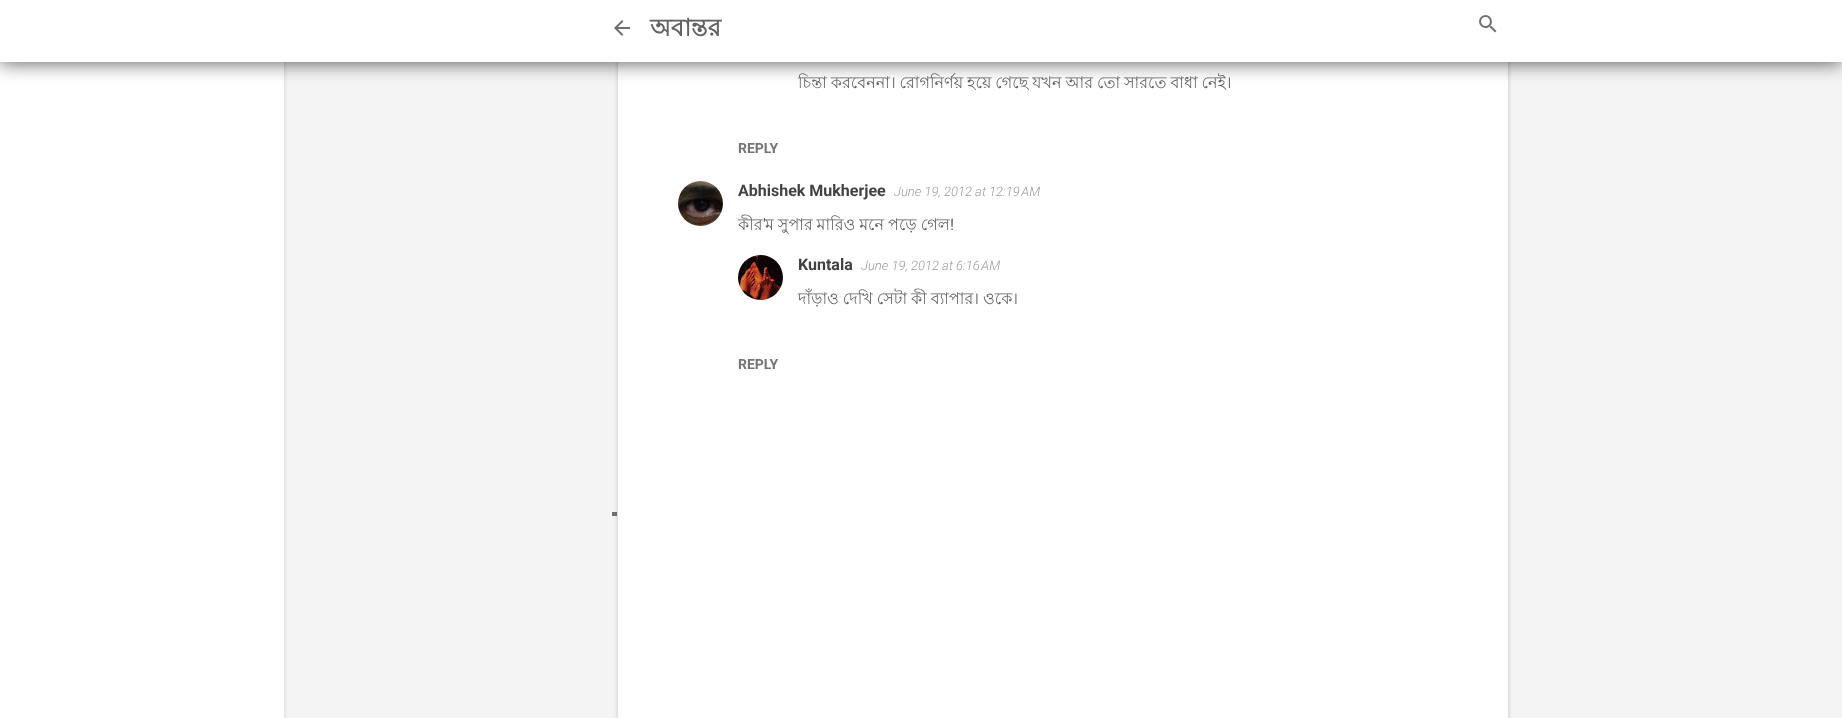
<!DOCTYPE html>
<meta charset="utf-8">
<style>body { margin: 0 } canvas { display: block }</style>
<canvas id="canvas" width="1842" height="718"></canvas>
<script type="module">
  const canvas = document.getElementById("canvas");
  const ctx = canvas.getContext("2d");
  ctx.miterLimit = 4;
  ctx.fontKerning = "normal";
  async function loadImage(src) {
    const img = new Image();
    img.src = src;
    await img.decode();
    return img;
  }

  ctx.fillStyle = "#f4f4f4";
  ctx.fillRect(0, 0, 1842, 718);
  ctx.fillStyle = "rgba(0, 0, 0, 0.1)";
  ctx.filter = "blur(1.5px)";
  ctx.beginPath();
  ctx.rect(1, -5, 284, 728);
  ctx.fill();
  ctx.filter = "none";
  ctx.fillStyle = "#ffffff";
  ctx.fillRect(0, 62, 284, 656);
  ctx.fillStyle = "rgba(60, 64, 67, 0.3)";
  ctx.filter = "blur(2px)";
  ctx.beginPath();
  ctx.rect(618, -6, 890, 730);
  ctx.fill();
  ctx.filter = "none";
  ctx.fillStyle = "#ffffff";
  ctx.fillRect(618, 62, 890, 656);
  ctx.fillStyle = "rgba(0, 0, 0, 0.7)";
  ctx.filter = "blur(10px)";
  ctx.beginPath();
  ctx.rect(0, 0, 1842, 62);
  ctx.fill();
  ctx.filter = "none";
  ctx.fillStyle = "#ffffff";
  ctx.fillRect(0, 0, 1842, 62);
  ctx.drawImage(await loadImage("img1.png"), 614, 20, 16, 16);
  ctx.font = "bold 24px Lohit Bengali";
  ctx.fillStyle = "#636363";
  ctx.fillText("অবান্তর", 650, 36);
  ctx.drawImage(await loadImage("img2.png"), 1479, 15, 18, 18);
  ctx.wordSpacing = "-0.5px";
  ctx.font = "16px Lohit Bengali";
  ctx.fillText("চিন্তা করবেননা। রোগনির্ণয় হয়ে গেছে যখন আর তো সারতে বাধা নেই।", 798, 88);
  ctx.wordSpacing = "0px";
  ctx.font = "bold 14px Roboto";
  ctx.fillStyle = "#757575";
  ctx.fillText("REPLY", 738, 153);
  ctx.drawImage(await loadImage("img3.png"), 678, 181, 45, 45);
  ctx.font = "bold 16px Roboto";
  ctx.fillStyle = "#424242";
  ctx.fillText("Abhishek Mukherjee", 738, 196);
  ctx.font = "italic 300 13px Roboto";
  ctx.fillStyle = "#999999";
  ctx.fillText("June 19, 2012 at 12:19 AM", 894, 196);
  ctx.font = "16px Lohit Bengali";
  ctx.fillStyle = "#636363";
  ctx.fillText("কীর", 738, 230);
  ctx.font = "16px Roboto";
  ctx.fillText("'", 763, 230);
  ctx.wordSpacing = "-0.5px";
  ctx.font = "16px Lohit Bengali";
  ctx.fillText("ম সুপার মারিও মনে পড়ে গেল", 765, 230);
  ctx.wordSpacing = "0px";
  ctx.font = "16px Roboto";
  ctx.fillText("!", 950, 230);
  ctx.font = "bold 14px Roboto";
  ctx.fillStyle = "#757575";
  ctx.fillText("REPLY", 738, 369);
  ctx.drawImage(await loadImage("img4.png"), 738, 255, 45, 45);
  ctx.font = "bold 16px Roboto";
  ctx.fillStyle = "#424242";
  ctx.fillText("Kuntala", 798, 270);
  ctx.font = "italic 300 13px Roboto";
  ctx.fillStyle = "#999999";
  ctx.fillText("June 19, 2012 at 6:16 AM", 861, 270);
  ctx.wordSpacing = "-0.5px";
  ctx.font = "16px Lohit Bengali";
  ctx.fillStyle = "#636363";
  ctx.fillText("দাঁড়াও দেখি সেটা কী ব্যাপার। ওকে।", 798, 304);
  ctx.fillStyle = "rgba(0, 0, 0, 0.54)";
  ctx.fillRect(612, 512, 5, 4);
</script>
